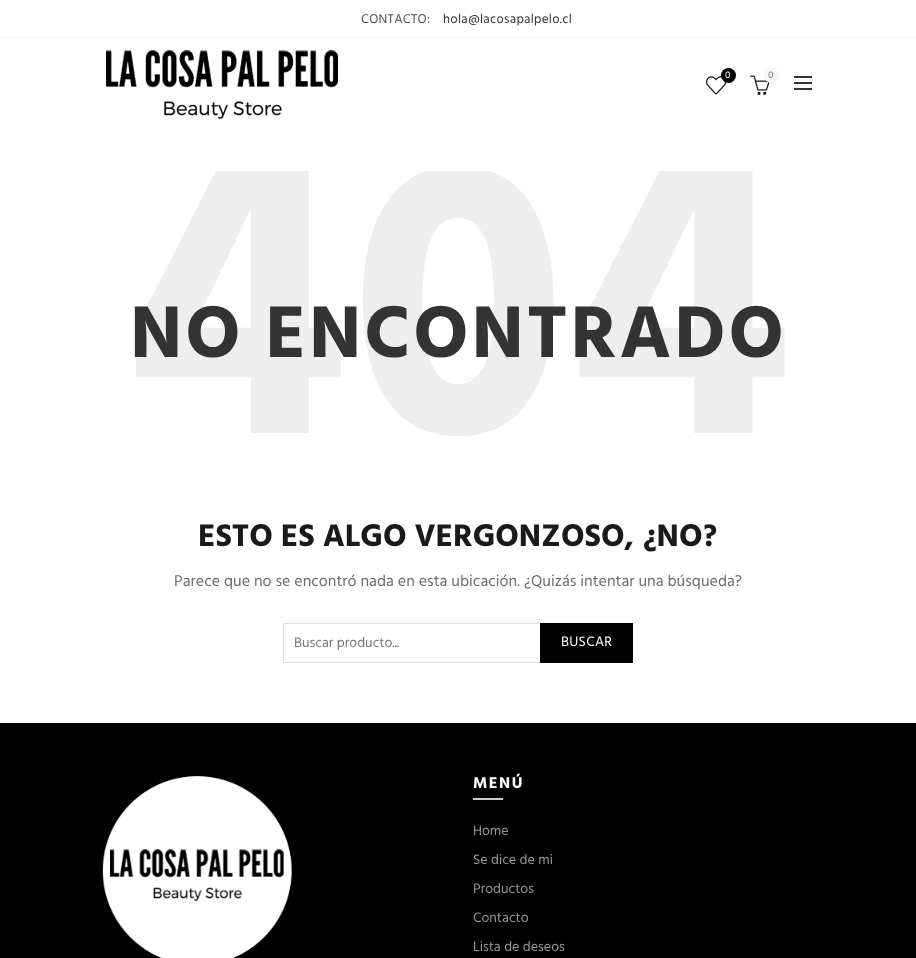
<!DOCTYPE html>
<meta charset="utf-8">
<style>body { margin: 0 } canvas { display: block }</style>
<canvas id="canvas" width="916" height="958"></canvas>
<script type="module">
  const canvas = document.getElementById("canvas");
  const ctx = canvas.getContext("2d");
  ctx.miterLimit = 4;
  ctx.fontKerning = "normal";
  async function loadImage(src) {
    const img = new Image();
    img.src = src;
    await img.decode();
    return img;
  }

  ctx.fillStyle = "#ffffff";
  ctx.fillRect(0, 0, 916, 958);
  ctx.fillStyle = "#f2f2f2";
  ctx.fillRect(0, 37, 916, 1);
  ctx.letterSpacing = "0.3px";
  ctx.font = "13px Hind";
  ctx.fillStyle = "#4d4d4d";
  ctx.fillText("CONTACTO:", 361, 23);
  ctx.fillStyle = "#333333";
  ctx.fillText("hola@lacosapalpelo.cl", 443, 23);
  ctx.drawImage(await loadImage("img1.png"), 106, 50, 232, 69);
  ctx.drawImage(await loadImage("img2.png"), 706, 76, 20, 19);
  ctx.fillStyle = "#000000";
  ctx.beginPath();
  ctx.arc(728.5, 75.5, 7.5, 0, Math.PI * 2);
  ctx.fill();
  ctx.letterSpacing = "0px";
  ctx.font = "10px Hind";
  ctx.fillStyle = "#ffffff";
  ctx.fillText("0", 725, 78);
  ctx.drawImage(await loadImage("img3.png"), 750, 75, 20, 20);
  ctx.fillStyle = "#f7f7f7";
  ctx.beginPath();
  ctx.arc(771.5, 75.5, 7.5, 0, Math.PI * 2);
  ctx.fill();
  ctx.fillStyle = "#7e7e7e";
  ctx.fillText("0", 768, 78);
  ctx.fillStyle = "#333333";
  ctx.fillRect(794, 82, 18, 2);
  ctx.fillRect(794, 76, 18, 2);
  ctx.fillRect(794, 88, 18, 2);
  ctx.save();
  ctx.beginPath();
  ctx.rect(98, 171, 720, 335);
  ctx.clip();
  ctx.font = "bold 400px Hind";
  ctx.fillStyle = "#eeeeee";
  ctx.fillText("404", 124, 433);
  ctx.restore();
  ctx.letterSpacing = "3px";
  ctx.font = "bold 75px Hind";
  ctx.fillText("NO ENCONTRADO", 130, 357);
  ctx.letterSpacing = "0px";
  ctx.font = "bold 32px Hind";
  ctx.fillStyle = "#1b1919";
  ctx.fillText("ESTO ES ALGO VERGONZOSO, ¿NO?", 198, 546);
  ctx.font = "16px Hind";
  ctx.fillStyle = "#6c6c6c";
  ctx.fillText("Parece que no se encontró nada en esta ubicación. ¿Quizás intentar una búsqueda?", 174, 586);
  ctx.strokeStyle = "#e0e0e0";
  ctx.strokeRect(283.5, 623.5, 349, 39);
  ctx.font = "14px Hind";
  ctx.fillStyle = "#757575";
  ctx.fillText("Buscar producto...", 294, 647);
  ctx.fillStyle = "#000000";
  ctx.fillRect(540, 623, 93, 40);
  ctx.letterSpacing = "0.3px";
  ctx.fillStyle = "#ffffff";
  ctx.fillText("BUSCAR", 561, 646);
  ctx.fillStyle = "#000000";
  ctx.fillRect(0, 723, 916, 235);
  ctx.drawImage(await loadImage("img4.png"), 102, 776, 190, 182);
  ctx.letterSpacing = "1.5px";
  ctx.font = "bold 16px Hind";
  ctx.fillStyle = "#ffffff";
  ctx.fillText("MENÚ", 473, 788);
  ctx.fillStyle = "#cccccc";
  ctx.fillRect(473, 798, 30, 2);
  ctx.letterSpacing = "0px";
  ctx.font = "14px Hind";
  ctx.fillStyle = "#999999";
  ctx.fillText("Home", 473, 835);
  ctx.fillText("Se dice de mi", 473, 864);
  ctx.fillText("Productos", 473, 893);
  ctx.fillText("Contacto", 473, 922);
  ctx.fillText("Lista de deseos", 473, 951);
</script>
